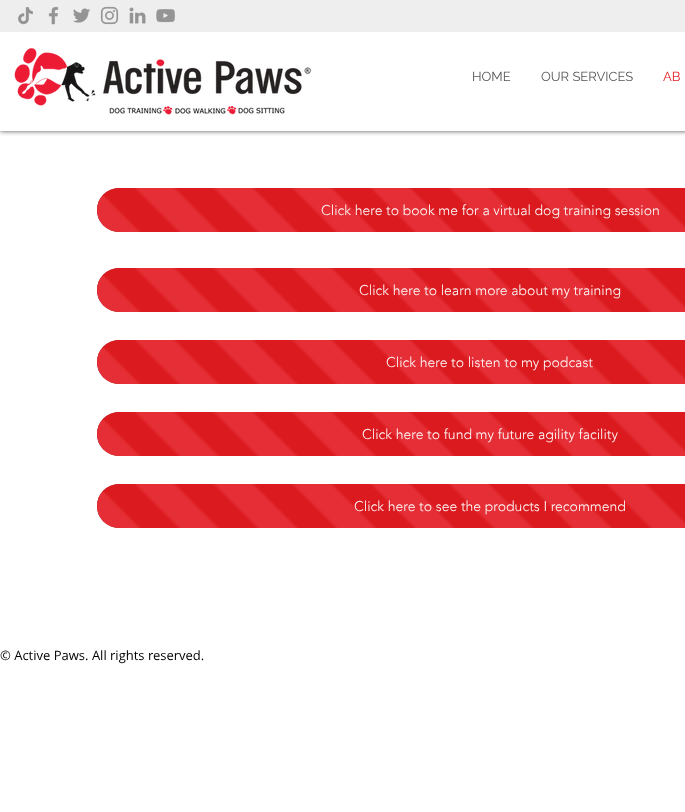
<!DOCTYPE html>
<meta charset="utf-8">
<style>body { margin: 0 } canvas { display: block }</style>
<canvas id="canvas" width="685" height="812"></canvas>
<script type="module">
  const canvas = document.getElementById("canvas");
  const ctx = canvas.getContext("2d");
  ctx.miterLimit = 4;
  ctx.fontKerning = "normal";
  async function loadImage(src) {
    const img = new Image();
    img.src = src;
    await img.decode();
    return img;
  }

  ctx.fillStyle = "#ffffff";
  ctx.fillRect(0, 0, 685, 812);
  ctx.save();
  ctx.beginPath();
  ctx.rect(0, 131, 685, 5);
  ctx.clip();
  ctx.fillStyle = "rgba(0, 0, 0, 0.7)";
  ctx.filter = "blur(2.5px)";
  ctx.beginPath();
  ctx.rect(0, 0, 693, 131);
  ctx.fill();
  ctx.filter = "none";
  ctx.restore();
  ctx.fillStyle = "#eeeeee";
  ctx.fillRect(0, 0, 685, 32);
  ctx.drawImage(await loadImage("img1.png"), 18, 7, 15, 18);
  ctx.drawImage(await loadImage("img2.png"), 48, 6, 11, 19);
  ctx.drawImage(await loadImage("img3.png"), 73, 8, 17, 15);
  ctx.drawImage(await loadImage("img4.png"), 100, 6, 19, 19);
  ctx.drawImage(await loadImage("img5.png"), 129, 7, 17, 17);
  ctx.drawImage(await loadImage("img6.png"), 156, 9, 19, 14);
  ctx.drawImage(await loadImage("img7.png"), 14, 48, 298, 67);
  ctx.font = "13px Raleway";
  ctx.fillStyle = "#555555";
  ctx.fillText("HOME", 472, 81);
  ctx.fillText("OUR SERVICES", 541, 81);
  ctx.fillStyle = "#e21c21";
  ctx.fillText("AB", 663, 81);
  ctx.fillStyle = "#950b0b";
  ctx.beginPath();
  ctx.roundRect(97, 188, 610, 44, 22);
  ctx.fill();
  ctx.drawImage(await loadImage("img8.png"), 97, 188, 588, 44);
  ctx.font = "300 14px 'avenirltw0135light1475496'";
  ctx.fillStyle = "#ffffff";
  ctx.fillText("Click here to book me for a virtual dog training session", 321, 215);
  ctx.fillStyle = "#950b0b";
  ctx.beginPath();
  ctx.roundRect(97, 268, 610, 44, 22);
  ctx.fill();
  ctx.drawImage(await loadImage("img8.png"), 97, 268, 588, 44);
  ctx.fillStyle = "#ffffff";
  ctx.fillText("Click here to learn more about my training", 359, 295);
  ctx.fillStyle = "#950b0b";
  ctx.beginPath();
  ctx.roundRect(97, 340, 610, 44, 22);
  ctx.fill();
  ctx.drawImage(await loadImage("img8.png"), 97, 340, 588, 44);
  ctx.fillStyle = "#ffffff";
  ctx.fillText("Click here to listen to my podcast", 386, 367);
  ctx.fillStyle = "#950b0b";
  ctx.beginPath();
  ctx.roundRect(97, 412, 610, 44, 22);
  ctx.fill();
  ctx.drawImage(await loadImage("img8.png"), 97, 412, 588, 44);
  ctx.fillStyle = "#ffffff";
  ctx.fillText("Click here to fund my future agility facility", 362, 439);
  ctx.fillStyle = "#950b0b";
  ctx.beginPath();
  ctx.roundRect(97, 484, 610, 44, 22);
  ctx.fill();
  ctx.drawImage(await loadImage("img9.png"), 97, 484, 588, 44);
  ctx.fillStyle = "#ffffff";
  ctx.fillText("Click here to see the products I recommend", 354, 511);
  ctx.font = "13px Open Sans";
  ctx.fillStyle = "#000000";
  ctx.fillText("© Active Paws. All rights reserved.", 0, 660);
</script>
